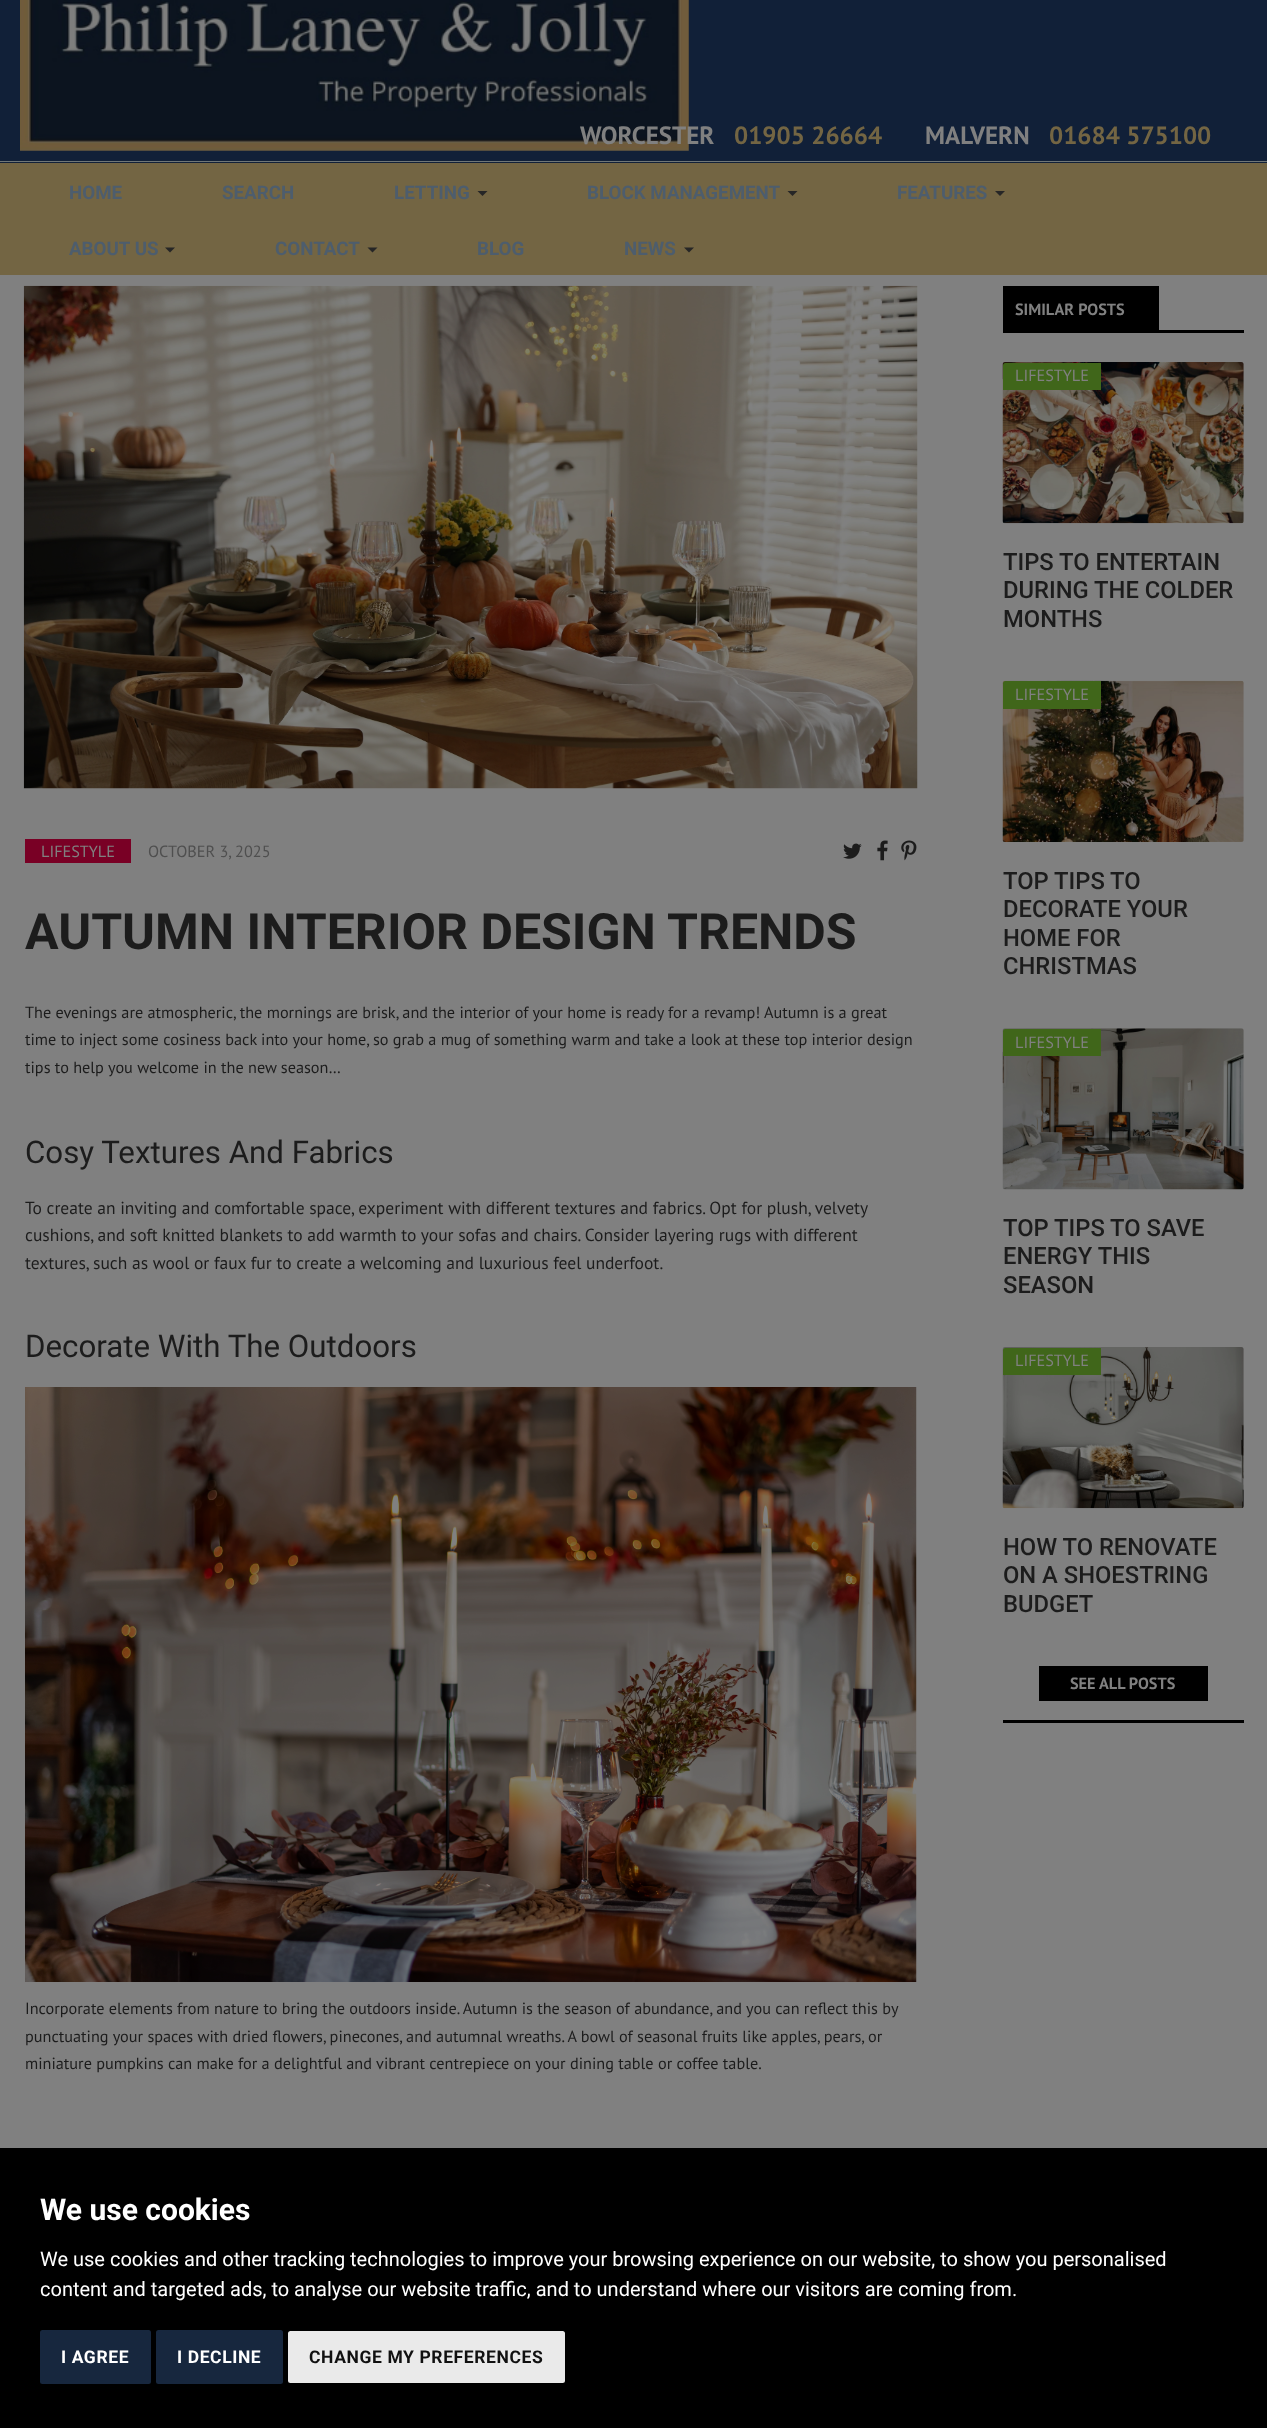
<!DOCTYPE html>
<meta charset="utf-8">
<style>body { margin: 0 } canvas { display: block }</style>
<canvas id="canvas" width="1267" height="2428"></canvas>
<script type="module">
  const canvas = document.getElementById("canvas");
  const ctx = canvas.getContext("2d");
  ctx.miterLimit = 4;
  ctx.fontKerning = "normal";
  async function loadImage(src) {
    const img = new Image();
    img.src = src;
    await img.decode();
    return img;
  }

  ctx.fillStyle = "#808080";
  ctx.fillRect(0, 0, 1267, 2428);
  ctx.fillStyle = "#112038";
  ctx.fillRect(0, 0, 1267, 163);
  ctx.fillStyle = "#707777";
  ctx.fillRect(0, 161, 1267, 1);
  ctx.drawImage(await loadImage("img1.png"), 20, 0, 669, 151);
  ctx.font = "bold 25px PT Sans";
  ctx.fillStyle = "#808080";
  ctx.fillText("WORCESTER", 580, 144);
  ctx.fillStyle = "#736543";
  ctx.fillText("01905 26664", 734, 144);
  ctx.fillStyle = "#808080";
  ctx.fillText("MALVERN", 925, 144);
  ctx.fillStyle = "#736543";
  ctx.fillText("01684 575100", 1049, 144);
  ctx.fillRect(0, 163, 1267, 112);
  ctx.font = "bold 18.75px Roboto";
  ctx.fillStyle = "#4d5d6d";
  ctx.fillText("HOME", 69, 199);
  ctx.fillText("SEARCH", 222, 199);
  ctx.fillText("LETTING", 394, 199);
  ctx.fillStyle = "#262626";
  ctx.beginPath();
  ctx.moveTo(477.5, 191);
  ctx.lineTo(487.5, 191);
  ctx.lineTo(482.5, 196);
  ctx.closePath();
  ctx.fill();
  ctx.fillStyle = "#4d5d6d";
  ctx.fillText("BLOCK MANAGEMENT", 587, 199);
  ctx.fillStyle = "#262626";
  ctx.beginPath();
  ctx.moveTo(787.5, 191);
  ctx.lineTo(797.5, 191);
  ctx.lineTo(792.5, 196);
  ctx.closePath();
  ctx.fill();
  ctx.fillStyle = "#4d5d6d";
  ctx.fillText("FEATURES", 897, 199);
  ctx.fillStyle = "#262626";
  ctx.beginPath();
  ctx.moveTo(995, 191);
  ctx.lineTo(1005, 191);
  ctx.lineTo(1000, 196);
  ctx.closePath();
  ctx.fill();
  ctx.fillStyle = "#4d5d6d";
  ctx.fillText("ABOUT US", 69, 255);
  ctx.fillStyle = "#262626";
  ctx.beginPath();
  ctx.moveTo(165, 247.5);
  ctx.lineTo(175, 247.5);
  ctx.lineTo(170, 252.5);
  ctx.closePath();
  ctx.fill();
  ctx.fillStyle = "#4d5d6d";
  ctx.fillText("CONTACT", 275, 255);
  ctx.fillStyle = "#262626";
  ctx.beginPath();
  ctx.moveTo(367.5, 247.5);
  ctx.lineTo(377.5, 247.5);
  ctx.lineTo(372.5, 252.5);
  ctx.closePath();
  ctx.fill();
  ctx.fillStyle = "#4d5d6d";
  ctx.fillText("BLOG", 477, 255);
  ctx.fillText("NEWS", 624, 255);
  ctx.fillStyle = "#262626";
  ctx.beginPath();
  ctx.moveTo(684, 247.5);
  ctx.lineTo(694, 247.5);
  ctx.lineTo(689, 252.5);
  ctx.closePath();
  ctx.fill();
  ctx.fillStyle = "#000000";
  ctx.fillRect(1003, 286, 156, 44);
  ctx.font = "bold 16.25px PT Sans";
  ctx.fillStyle = "#808080";
  ctx.fillText("SIMILAR POSTS", 1015, 315);
  ctx.fillStyle = "#000000";
  ctx.fillRect(1003, 330, 241, 3);
  ctx.drawImage(await loadImage("img2.png"), 23, 285, 895, 504);
  ctx.fillStyle = "#790025";
  ctx.fillRect(25, 839, 106, 24);
  ctx.font = "16.25px PT Sans";
  ctx.fillStyle = "#808080";
  ctx.fillText("LIFESTYLE", 41, 857);
  ctx.fillStyle = "#4f4f4f";
  ctx.fillText("OCTOBER 3, 2025", 148, 857);
  ctx.drawImage(await loadImage("img3.png"), 843, 843, 19, 16);
  ctx.drawImage(await loadImage("img4.png"), 877, 840, 11, 21);
  ctx.drawImage(await loadImage("img5.png"), 901, 840, 16, 21);
  ctx.font = "bold 50px Roboto";
  ctx.fillStyle = "#1c1c1c";
  ctx.fillText("AUTUMN INTERIOR DESIGN TRENDS", 25, 949);
  ctx.font = "16.25px PT Sans";
  ctx.fillText("The evenings are atmospheric, the mornings are brisk, and the interior of your home is ready for a revamp! Autumn is a great", 25, 1018);
  ctx.fillText("time to inject some cosiness back into your home, so grab a mug of something warm and take a look at these top interior design", 25, 1045);
  ctx.fillText("tips to help you welcome in the new season…", 25, 1073);
  ctx.font = "31.25px Roboto";
  ctx.fillText("Cosy Textures And Fabrics", 25, 1163);
  ctx.font = "17.5px PT Sans";
  ctx.fillText("To create an inviting and comfortable space, experiment with different textures and fabrics. Opt for plush, velvety", 25, 1214);
  ctx.fillText("cushions, and soft knitted blankets to add warmth to your sofas and chairs. Consider layering rugs with different", 25, 1241);
  ctx.fillText("textures, such as wool or faux fur to create a welcoming and luxurious feel underfoot.", 25, 1269);
  ctx.font = "31.25px Roboto";
  ctx.fillText("Decorate With The Outdoors", 25, 1357);
  ctx.drawImage(await loadImage("img6.png"), 25, 1387, 892, 595);
  ctx.font = "16.25px PT Sans";
  ctx.fillText("Incorporate elements from nature to bring the outdoors inside. Autumn is the season of abundance, and you can reflect this by", 25, 2014);
  ctx.fillText("punctuating your spaces with dried flowers, pinecones, and autumnal wreaths. A bowl of seasonal fruits like apples, pears, or", 25, 2042);
  ctx.fillText("miniature pumpkins can make for a delightful and vibrant centrepiece on your dining table or coffee table.", 25, 2069);
  ctx.drawImage(await loadImage("img7.png"), 1002, 362, 242, 162);
  ctx.fillStyle = "#40661a";
  ctx.beginPath();
  ctx.roundRect(1003, 363, 98, 27, [2.5, 0, 0, 0]);
  ctx.fill();
  ctx.fillStyle = "#808080";
  ctx.fillText("LIFESTYLE", 1015, 381);
  ctx.font = "500 23.75px Roboto";
  ctx.fillStyle = "#1c1c1c";
  ctx.fillText("TIPS TO ENTERTAIN", 1003, 570);
  ctx.fillText("DURING THE COLDER", 1003, 598);
  ctx.fillText("MONTHS", 1003, 627);
  ctx.drawImage(await loadImage("img8.png"), 1002, 680, 242, 162);
  ctx.fillStyle = "#40661a";
  ctx.beginPath();
  ctx.roundRect(1003, 681, 98, 28, [2.5, 0, 0, 0]);
  ctx.fill();
  ctx.font = "16.25px PT Sans";
  ctx.fillStyle = "#808080";
  ctx.fillText("LIFESTYLE", 1015, 700);
  ctx.font = "500 23.75px Roboto";
  ctx.fillStyle = "#1c1c1c";
  ctx.fillText("TOP TIPS TO", 1003, 889);
  ctx.fillText("DECORATE YOUR", 1003, 917);
  ctx.fillText("HOME FOR", 1003, 946);
  ctx.fillText("CHRISTMAS", 1003, 974);
  ctx.drawImage(await loadImage("img9.png"), 1002, 1028, 242, 162);
  ctx.fillStyle = "#40661a";
  ctx.beginPath();
  ctx.roundRect(1003, 1029, 98, 27, [2.5, 0, 0, 0]);
  ctx.fill();
  ctx.font = "16.25px PT Sans";
  ctx.fillStyle = "#808080";
  ctx.fillText("LIFESTYLE", 1015, 1048);
  ctx.font = "500 23.75px Roboto";
  ctx.fillStyle = "#1c1c1c";
  ctx.fillText("TOP TIPS TO SAVE", 1003, 1236);
  ctx.fillText("ENERGY THIS", 1003, 1264);
  ctx.fillText("SEASON", 1003, 1293);
  ctx.drawImage(await loadImage("img10.png"), 1002, 1347, 242, 162);
  ctx.fillStyle = "#40661a";
  ctx.beginPath();
  ctx.roundRect(1003, 1348, 98, 27, [2.5, 0, 0, 0]);
  ctx.fill();
  ctx.font = "16.25px PT Sans";
  ctx.fillStyle = "#808080";
  ctx.fillText("LIFESTYLE", 1015, 1366);
  ctx.font = "500 23.75px Roboto";
  ctx.fillStyle = "#1c1c1c";
  ctx.fillText("HOW TO RENOVATE", 1003, 1555);
  ctx.fillText("ON A SHOESTRING", 1003, 1583);
  ctx.fillText("BUDGET", 1003, 1612);
  ctx.fillStyle = "#000000";
  ctx.fillRect(1039, 1666, 169, 35);
  ctx.font = "bold 16.25px PT Sans";
  ctx.fillStyle = "#808080";
  ctx.fillText("SEE ALL POSTS", 1070, 1689);
  ctx.fillStyle = "#000000";
  ctx.fillRect(1003, 1720, 241, 3);
  ctx.fillRect(0, 2148, 1267, 280);
  ctx.font = "bold 30px Roboto";
  ctx.fillStyle = "#ffffff";
  ctx.fillText("We use cookies", 40, 2220);
  ctx.font = "20px Roboto";
  ctx.fillText("We use cookies and other tracking technologies to improve your browsing experience on our website, to show you personalised", 40, 2266);
  ctx.fillText("content and targeted ads, to analyse our website traffic, and to understand where our visitors are coming from.", 40, 2296);
  ctx.fillStyle = "#17273e";
  ctx.beginPath();
  ctx.roundRect(40, 2330, 111, 54, 2.5);
  ctx.fill();
  ctx.letterSpacing = "0.6px";
  ctx.font = "bold 17.5px Roboto";
  ctx.fillStyle = "#ffffff";
  ctx.fillText("I AGREE", 61, 2363);
  ctx.fillStyle = "#17273e";
  ctx.beginPath();
  ctx.roundRect(156, 2330, 127, 54, 2.5);
  ctx.fill();
  ctx.fillStyle = "#ffffff";
  ctx.fillText("I DECLINE", 177, 2363);
  ctx.fillStyle = "#eaeaea";
  ctx.beginPath();
  ctx.roundRect(288, 2331, 277, 52, 2.5);
  ctx.fill();
  ctx.fillStyle = "#111111";
  ctx.fillText("CHANGE MY PREFERENCES", 309, 2363);
</script>
